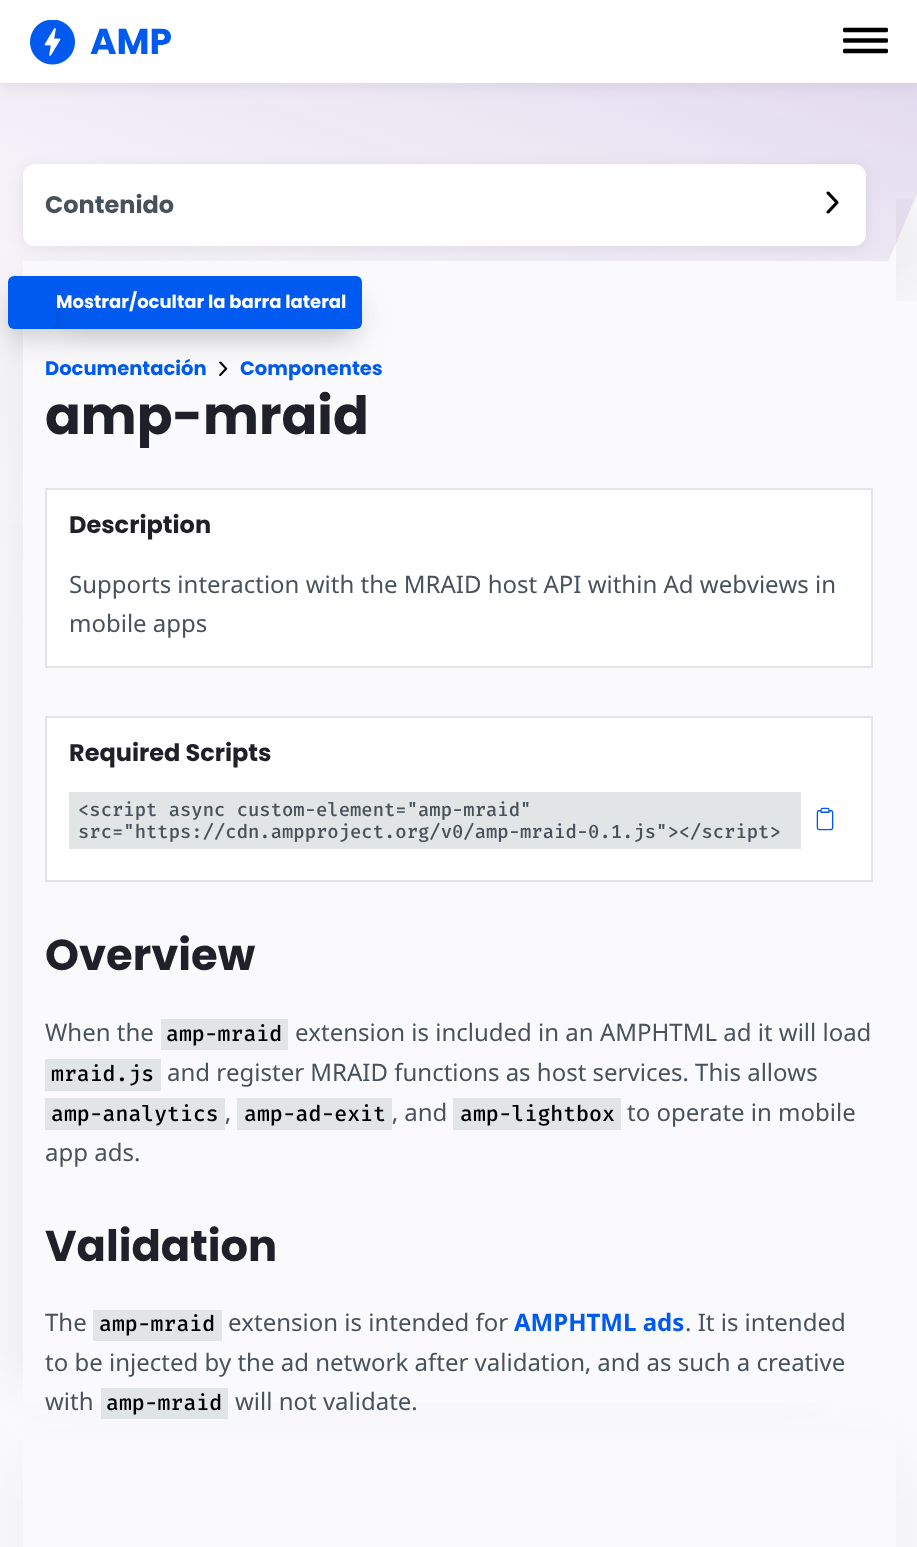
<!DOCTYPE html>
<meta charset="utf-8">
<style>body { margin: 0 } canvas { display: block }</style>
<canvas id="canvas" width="917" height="1547"></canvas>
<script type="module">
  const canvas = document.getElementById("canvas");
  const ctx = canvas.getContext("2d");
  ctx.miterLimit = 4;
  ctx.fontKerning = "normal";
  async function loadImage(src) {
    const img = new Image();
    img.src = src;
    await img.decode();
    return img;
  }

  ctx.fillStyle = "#fafafc";
  ctx.fillRect(0, 0, 917, 1547);
  ctx.drawImage(await loadImage("img1.png"), 0, 83, 917, 536);
  ctx.fillStyle = "rgba(0, 0, 0, 0.07)";
  ctx.filter = "blur(7.5px)";
  ctx.beginPath();
  ctx.rect(0, 3, 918, 83);
  ctx.fill();
  ctx.filter = "none";
  ctx.fillStyle = "#ffffff";
  ctx.fillRect(0, 0, 917, 83);
  ctx.drawImage(await loadImage("img2.png"), 30, 20, 45, 45);
  ctx.font = "bold 36px Poppins";
  ctx.fillStyle = "#005af0";
  ctx.fillText("AMP", 90, 54);
  ctx.drawImage(await loadImage("img3.png"), 843, 27, 45, 27);
  ctx.save();
  ctx.beginPath();
  ctx.rect(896, 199, 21, 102);
  ctx.clip();
  ctx.fillStyle = "rgba(0, 0, 0, 0.05)";
  ctx.filter = "blur(30px)";
  ctx.beginPath();
  ctx.rect(53, 201, 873, 98);
  ctx.fill();
  ctx.filter = "none";
  ctx.restore();
  ctx.fillStyle = "rgba(0, 0, 0, 0.05)";
  ctx.filter = "blur(22.5px)";
  ctx.beginPath();
  ctx.rect(8, 284, 813, 1101);
  ctx.fill();
  ctx.filter = "none";
  ctx.fillStyle = "#fafafc";
  ctx.fillRect(23, 261, 873, 1142);
  ctx.fillStyle = "rgba(0, 0, 0, 0.07)";
  ctx.filter = "blur(7.5px)";
  ctx.beginPath();
  ctx.roundRect(23, 167, 843, 82, 12);
  ctx.fill();
  ctx.filter = "none";
  ctx.fillStyle = "#ffffff";
  ctx.beginPath();
  ctx.roundRect(23, 164, 843, 82, 12);
  ctx.fill();
  ctx.font = "bold 24px Poppins";
  ctx.fillStyle = "#48525c";
  ctx.fillText("Contenido", 45, 213);
  ctx.drawImage(await loadImage("img4.png"), 826, 191, 13, 23);
  ctx.drawImage(await loadImage("img5.png"), 219, 361, 9, 15);
  ctx.fillStyle = "rgba(0, 0, 0, 0.25)";
  ctx.filter = "blur(15px)";
  ctx.beginPath();
  ctx.rect(56, 299, 298, 37);
  ctx.fill();
  ctx.filter = "none";
  ctx.fillStyle = "#005af0";
  ctx.beginPath();
  ctx.roundRect(48, 276, 314, 53, [0, 6, 6, 0]);
  ctx.fill();
  ctx.fillStyle = "rgba(0, 0, 0, 0.25)";
  ctx.filter = "blur(15px)";
  ctx.beginPath();
  ctx.rect(15, 299, 33, 37);
  ctx.fill();
  ctx.filter = "none";
  ctx.fillStyle = "#005af0";
  ctx.beginPath();
  ctx.roundRect(8, 276, 48, 53, 6);
  ctx.fill();
  ctx.font = "bold 18px Poppins";
  ctx.fillStyle = "#ffffff";
  ctx.fillText("Mostrar/ocultar la barra lateral", 56, 308);
  ctx.font = "bold 19.5px Poppins";
  ctx.fillStyle = "#005af0";
  ctx.fillText("Documentación", 45, 375);
  ctx.fillText("Componentes", 240, 375);
  ctx.font = "bold 52.75px Poppins";
  ctx.fillStyle = "#20202a";
  ctx.fillText("amp-mraid", 45, 434);
  ctx.fillStyle = "#ffffff";
  ctx.beginPath();
  ctx.rect(46, 489, 826, 178);
  ctx.fill();
  ctx.strokeStyle = "#e2e5e6";
  ctx.lineWidth = 2;
  ctx.stroke();
  ctx.font = "bold 24px Poppins";
  ctx.fillStyle = "#20202a";
  ctx.fillText("Description", 69, 533);
  ctx.font = "24px Noto Sans";
  ctx.fillStyle = "#48525c";
  ctx.fillText("Supports interaction with the MRAID host API within Ad webviews in", 69, 593);
  ctx.fillText("mobile apps", 69, 632);
  ctx.fillStyle = "#ffffff";
  ctx.beginPath();
  ctx.rect(46, 717, 826, 164);
  ctx.fill();
  ctx.stroke();
  ctx.font = "bold 24px Poppins";
  ctx.fillStyle = "#20202a";
  ctx.fillText("Required Scripts", 69, 761);
  ctx.fillStyle = "#e2e5e6";
  ctx.fillRect(69, 792, 732, 57);
  ctx.font = "500 18.9px Fira Mono";
  ctx.fillStyle = "#48525c";
  ctx.fillText("<script async custom-element=\"amp-mraid\"", 78, 816);
  ctx.fillText("src=\"https://cdn.ampproject.org/v0/amp-mraid-0.1.js\"><\/script>", 78, 838);
  ctx.drawImage(await loadImage("img6.png"), 816, 807, 18, 24);
  ctx.font = "bold 43.25px Poppins";
  ctx.fillStyle = "#20202a";
  ctx.fillText("Overview", 45, 970);
  ctx.font = "24px Noto Sans";
  ctx.fillStyle = "#48525c";
  ctx.fillText("When the", 45, 1041);
  ctx.fillStyle = "#e2e5e6";
  ctx.fillRect(161, 1019, 127, 31);
  ctx.font = "500 21.5px Fira Mono";
  ctx.fillStyle = "#000000";
  ctx.fillText("amp-mraid", 166, 1041);
  ctx.font = "24px Noto Sans";
  ctx.fillStyle = "#48525c";
  ctx.fillText("extension is included in an AMPHTML ad it will load", 295, 1041);
  ctx.fillStyle = "#e2e5e6";
  ctx.fillRect(45, 1059, 116, 32);
  ctx.font = "500 21.5px Fira Mono";
  ctx.fillStyle = "#000000";
  ctx.fillText("mraid.js", 51, 1081);
  ctx.font = "24px Noto Sans";
  ctx.fillStyle = "#48525c";
  ctx.fillText("and register MRAID functions as host services. This allows", 167, 1081);
  ctx.fillStyle = "#e2e5e6";
  ctx.fillRect(45, 1098, 180, 32);
  ctx.font = "500 21.5px Fira Mono";
  ctx.fillStyle = "#000000";
  ctx.fillText("amp-analytics", 51, 1121);
  ctx.font = "24px Noto Sans";
  ctx.fillStyle = "#48525c";
  ctx.fillText(",", 225, 1121);
  ctx.fillStyle = "#e2e5e6";
  ctx.fillRect(237, 1098, 155, 32);
  ctx.font = "500 21.5px Fira Mono";
  ctx.fillStyle = "#000000";
  ctx.fillText("amp-ad-exit", 244, 1121);
  ctx.font = "24px Noto Sans";
  ctx.fillStyle = "#48525c";
  ctx.fillText(", and", 392, 1121);
  ctx.fillStyle = "#e2e5e6";
  ctx.fillRect(453, 1098, 168, 32);
  ctx.font = "500 21.5px Fira Mono";
  ctx.fillStyle = "#000000";
  ctx.fillText("amp-lightbox", 460, 1121);
  ctx.font = "24px Noto Sans";
  ctx.fillStyle = "#48525c";
  ctx.fillText("to operate in mobile", 627, 1121);
  ctx.fillText("app ads.", 45, 1161);
  ctx.font = "bold 43.25px Poppins";
  ctx.fillStyle = "#20202a";
  ctx.fillText("Validation", 45, 1261);
  ctx.font = "24px Noto Sans";
  ctx.fillStyle = "#48525c";
  ctx.fillText("The", 45, 1331);
  ctx.fillStyle = "#e2e5e6";
  ctx.fillRect(93, 1310, 129, 31);
  ctx.font = "500 21.5px Fira Mono";
  ctx.fillStyle = "#000000";
  ctx.fillText("amp-mraid", 99, 1331);
  ctx.font = "24px Noto Sans";
  ctx.fillStyle = "#48525c";
  ctx.fillText("extension is intended for", 228, 1331);
  ctx.font = "bold 24px Noto Sans";
  ctx.fillStyle = "#005af0";
  ctx.fillText("AMPHTML ads", 514, 1331);
  ctx.font = "24px Noto Sans";
  ctx.fillStyle = "#48525c";
  ctx.fillText(". It is intended", 685, 1331);
  ctx.fillText("to be injected by the ad network after validation, and as such a creative", 45, 1371);
  ctx.fillText("with", 45, 1410);
  ctx.fillStyle = "#e2e5e6";
  ctx.fillRect(101, 1388, 127, 31);
  ctx.font = "500 21.5px Fira Mono";
  ctx.fillStyle = "#000000";
  ctx.fillText("amp-mraid", 106, 1410);
  ctx.font = "24px Noto Sans";
  ctx.fillStyle = "#48525c";
  ctx.fillText("will not validate.", 235, 1410);
  ctx.fillStyle = "rgba(0, 0, 0, 0.05)";
  ctx.filter = "blur(30px)";
  ctx.beginPath();
  ctx.rect(23, 1460, 873, 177);
  ctx.fill();
  ctx.filter = "none";
  ctx.fillStyle = "#fafafc";
  ctx.fillRect(23, 1435, 873, 112);
</script>
